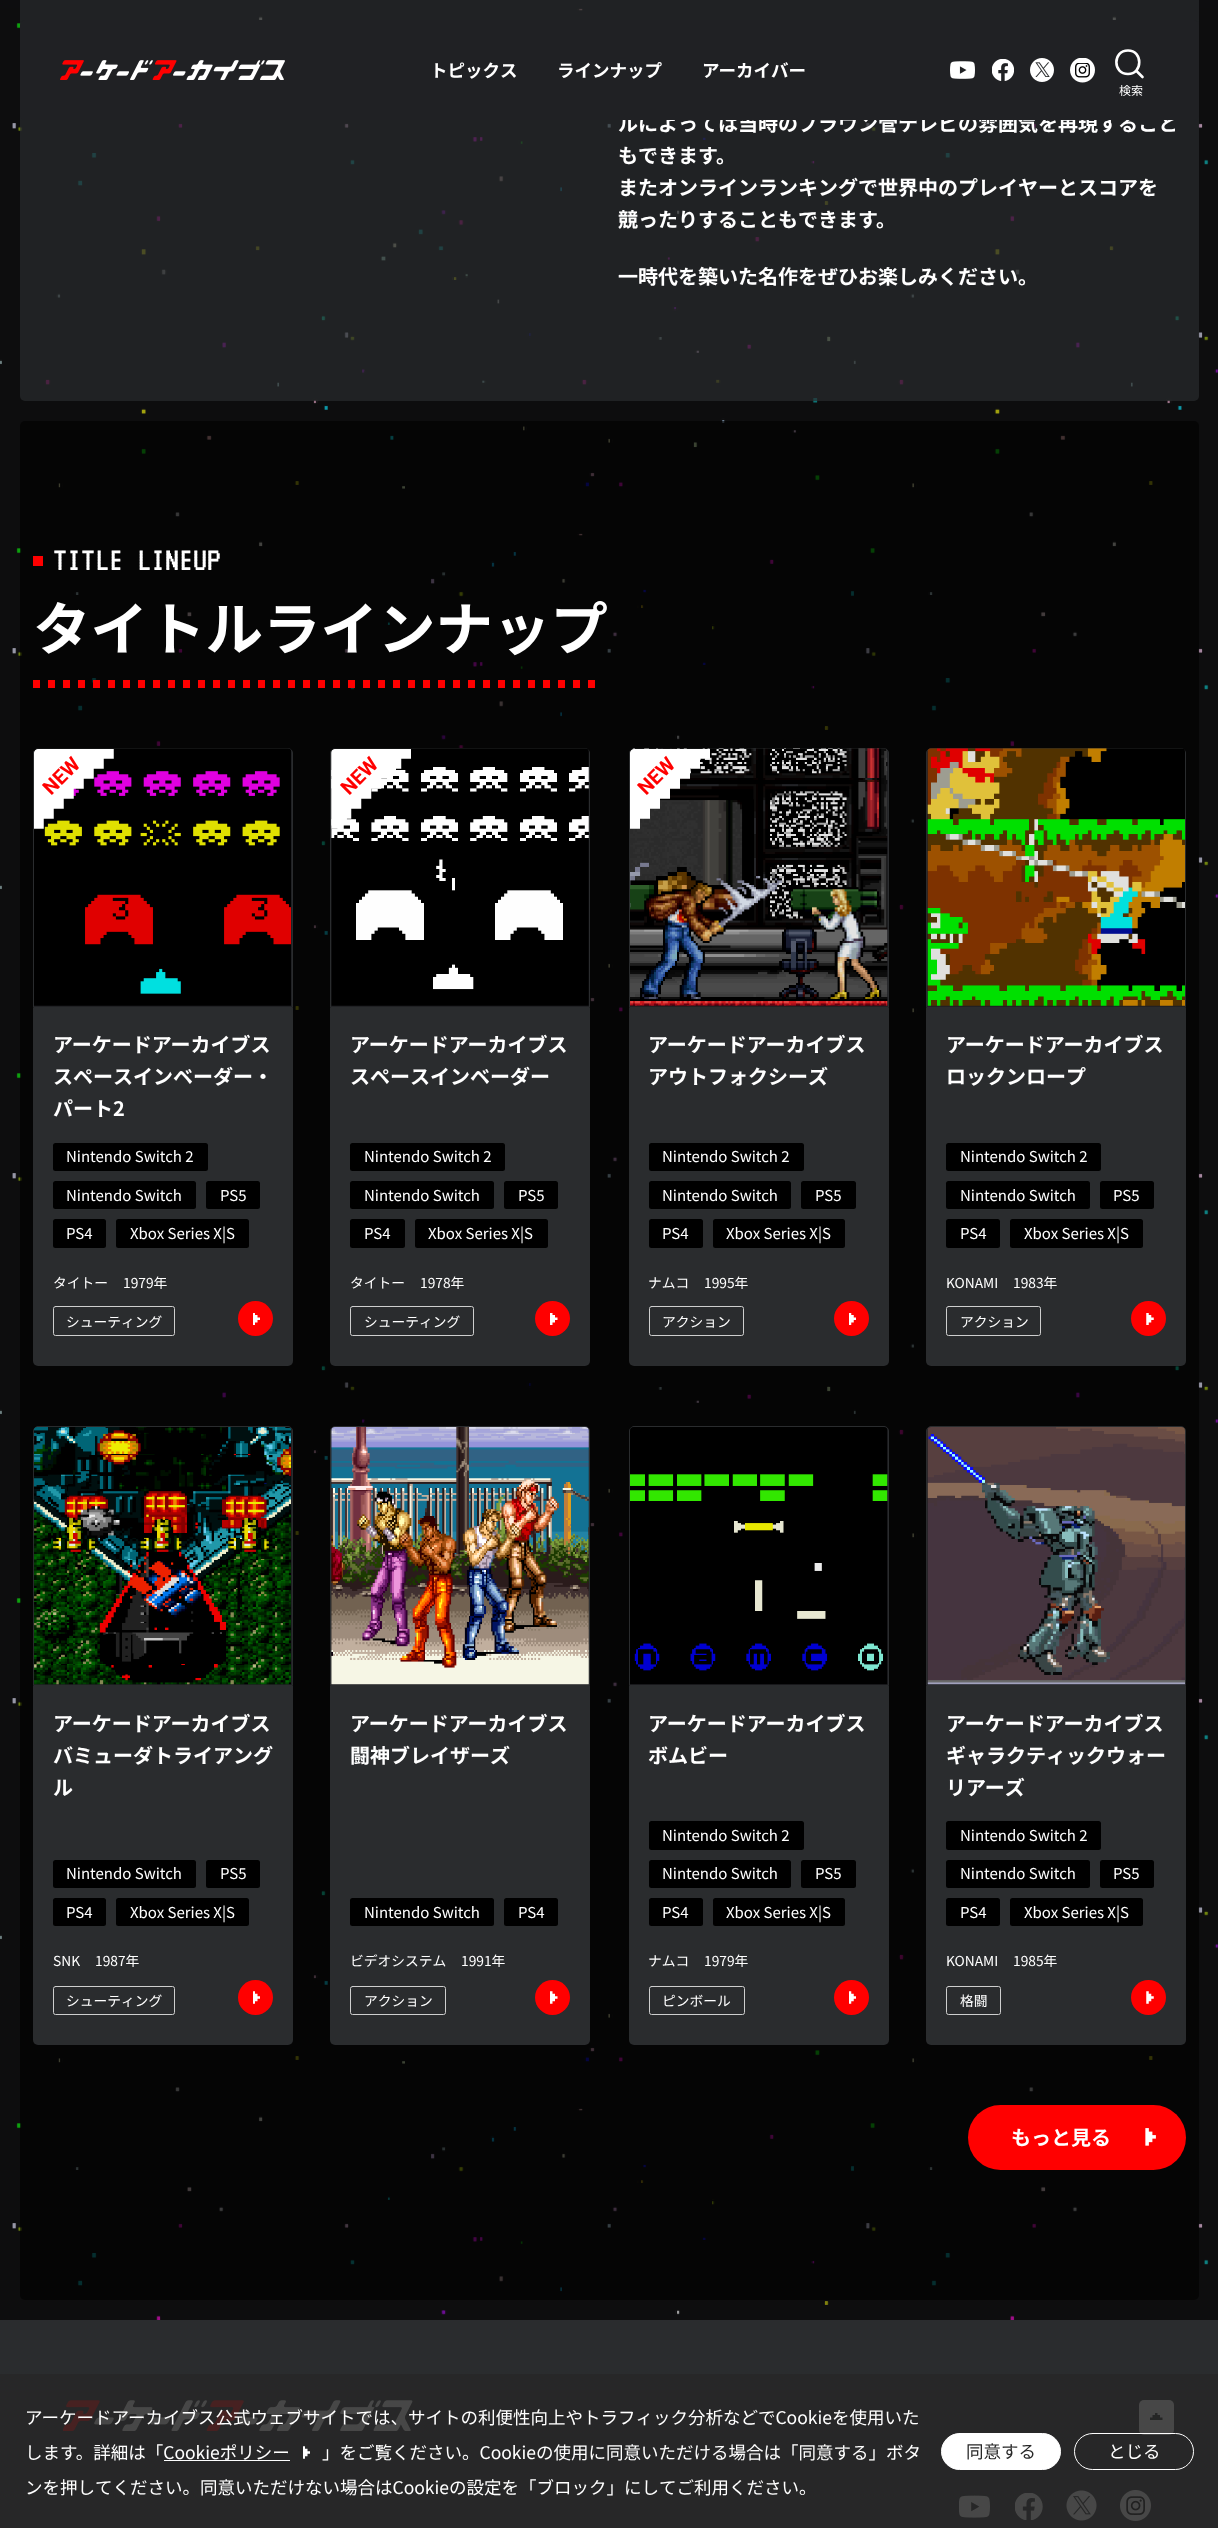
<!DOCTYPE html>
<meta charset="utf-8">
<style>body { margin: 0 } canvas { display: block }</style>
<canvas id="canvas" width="1218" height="2528"></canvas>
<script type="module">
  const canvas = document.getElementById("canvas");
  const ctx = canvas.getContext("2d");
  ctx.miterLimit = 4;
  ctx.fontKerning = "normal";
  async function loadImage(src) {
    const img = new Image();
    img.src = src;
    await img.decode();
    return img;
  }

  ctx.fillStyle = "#0d0d0f";
  ctx.fillRect(0, 0, 1218, 2528);
  ctx.drawImage(await loadImage("img1.png"), 0, 8, 1218, 2312);
  ctx.fillStyle = "rgba(42, 44, 46, 0.7)";
  ctx.beginPath();
  ctx.roundRect(20, -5, 1179, 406, 5);
  ctx.fill();
  ctx.font = "bold 20px Noto Sans JP";
  ctx.fillStyle = "#ffffff";
  ctx.fillText("ルによっては当時のブラウン管テレビの雰囲気を再現すること", 618, 131);
  ctx.fillStyle = "#202124";
  ctx.beginPath();
  ctx.roundRect(20, 20, 1179, 100, 5);
  ctx.fill();
  ctx.drawImage(await loadImage("img2.png"), 60, 60, 225, 20);
  ctx.font = "bold 17.5px Noto Sans JP";
  ctx.fillStyle = "#ffffff";
  ctx.fillText("トピックス", 430, 77);
  ctx.fillText("ラインナップ", 557, 77);
  ctx.fillText("アーカイバー", 702, 77);
  ctx.drawImage(await loadImage("img3.png"), 950, 61, 25, 18);
  ctx.drawImage(await loadImage("img4.png"), 992, 59, 22, 22);
  ctx.drawImage(await loadImage("img5.png"), 1030, 58, 24, 24);
  ctx.drawImage(await loadImage("img6.png"), 1070, 58, 25, 25);
  ctx.beginPath();
  ctx.moveTo(1128, 74);
  ctx.bezierCurveTo(1143, 74, 1143, 50.5, 1128, 50.5);
  ctx.bezierCurveTo(1112.5, 50.5, 1112.5, 74, 1128, 74);
  ctx.closePath();
  ctx.moveTo(1142.5, 77);
  ctx.lineTo(1136.5, 71);
  ctx.strokeStyle = "#ffffff";
  ctx.lineWidth = 2.6;
  ctx.lineCap = "round";
  ctx.lineJoin = "round";
  ctx.stroke();
  ctx.font = "12px Noto Sans JP";
  ctx.fillText("検索", 1119, 95);
  ctx.font = "bold 20px Noto Sans JP";
  ctx.fillText("もできます。", 618, 163);
  ctx.fillText("またオンラインランキングで世界中のプレイヤーとスコアを", 618, 195);
  ctx.fillText("競ったりすることもできます。", 618, 227);
  ctx.fillText("一時代を築いた名作をぜひお楽しみください。", 618, 284);
  ctx.fillStyle = "rgba(0, 0, 0, 0.6)";
  ctx.beginPath();
  ctx.roundRect(20, 421, 1179, 1879, 5);
  ctx.fill();
  ctx.fillStyle = "#ff0000";
  ctx.fillRect(33, 556, 10, 10);
  ctx.font = "35px 'VT323'";
  ctx.fillStyle = "#ffffff";
  ctx.fillText("TITLE LINEUP", 53, 570);
  ctx.font = "bold 57.5px Noto Sans JP";
  ctx.fillText("タイトルラインナップ", 33, 650);
  ctx.drawImage(await loadImage("img7.png"), 33, 680, 562, 8);
  ctx.fillStyle = "#202124";
  ctx.beginPath();
  ctx.roundRect(33.5, 748.5, 259, 259, [4.5, 4.5, 0, 0]);
  ctx.fill();
  ctx.strokeStyle = "#2a2c2e";
  ctx.lineWidth = 1;
  ctx.lineJoin = "miter";
  ctx.stroke();
  ctx.drawImage(await loadImage("img8.png"), 34, 748, 257, 258);
  ctx.drawImage(await loadImage("img9.png"), 34, 749, 80, 80);
  ctx.font = "bold 20px Roboto";
  ctx.fillStyle = "#ff0000";
  ctx.save();
  ctx.translate(51, 796);
  ctx.rotate(-45 * Math.PI / 180);
  ctx.fillText("NEW", 0, 0);
  ctx.restore();
  ctx.fillStyle = "#2a2c2e";
  ctx.beginPath();
  ctx.roundRect(33, 1008, 260, 358, [0, 0, 5, 5]);
  ctx.fill();
  ctx.font = "bold 20px Noto Sans JP";
  ctx.fillStyle = "#ffffff";
  ctx.fillText("アーケードアーカイブス", 53, 1052);
  ctx.fillText("スペースインベーダー・", 53, 1084);
  ctx.fillText("パート2", 53, 1116);
  ctx.fillStyle = "#000000";
  ctx.beginPath();
  ctx.roundRect(53, 1143, 155, 28, 2.5);
  ctx.fill();
  ctx.font = "15px Noto Sans JP";
  ctx.fillStyle = "#ffffff";
  ctx.fillText("Nintendo Switch 2", 66, 1162);
  ctx.fillStyle = "#000000";
  ctx.beginPath();
  ctx.roundRect(53, 1181, 143, 28, 2.5);
  ctx.fill();
  ctx.fillStyle = "#ffffff";
  ctx.fillText("Nintendo Switch", 66, 1201);
  ctx.fillStyle = "#000000";
  ctx.beginPath();
  ctx.roundRect(206, 1181, 54, 28, 2.5);
  ctx.fill();
  ctx.fillStyle = "#ffffff";
  ctx.fillText("PS5", 220, 1201);
  ctx.fillStyle = "#000000";
  ctx.beginPath();
  ctx.roundRect(53, 1219, 53, 29, 2.5);
  ctx.fill();
  ctx.fillStyle = "#ffffff";
  ctx.fillText("PS4", 66, 1239);
  ctx.fillStyle = "#000000";
  ctx.beginPath();
  ctx.roundRect(116, 1219, 133, 29, 2.5);
  ctx.fill();
  ctx.fillStyle = "#ffffff";
  ctx.fillText("Xbox Series X|S", 130, 1239);
  ctx.font = "13.75px Noto Sans JP";
  ctx.fillText("タイトー", 53, 1288);
  ctx.fillText("1979年", 123, 1288);
  ctx.beginPath();
  ctx.roundRect(53.5, 1306.5, 121, 29, 2);
  ctx.strokeStyle = "#cecece";
  ctx.stroke();
  ctx.fillText("シューティング", 66, 1327);
  ctx.fillStyle = "#ff0000";
  ctx.beginPath();
  ctx.arc(255.5, 1318.5, 17.5, 0, Math.PI * 2);
  ctx.fill();
  ctx.drawImage(await loadImage("img10.png"), 253, 1313, 7, 12);
  ctx.fillStyle = "#202124";
  ctx.beginPath();
  ctx.roundRect(330.5, 748.5, 259, 259, [4.5, 4.5, 0, 0]);
  ctx.fill();
  ctx.strokeStyle = "#2a2c2e";
  ctx.stroke();
  ctx.drawImage(await loadImage("img11.png"), 331, 748, 258, 258);
  ctx.drawImage(await loadImage("img12.png"), 331, 749, 80, 80);
  ctx.font = "bold 20px Roboto";
  ctx.fillStyle = "#ff0000";
  ctx.save();
  ctx.translate(349, 796);
  ctx.rotate(-45 * Math.PI / 180);
  ctx.fillText("NEW", 0, 0);
  ctx.restore();
  ctx.fillStyle = "#2a2c2e";
  ctx.beginPath();
  ctx.roundRect(330, 1008, 260, 358, [0, 0, 5, 5]);
  ctx.fill();
  ctx.font = "bold 20px Noto Sans JP";
  ctx.fillStyle = "#ffffff";
  ctx.fillText("アーケードアーカイブス", 350, 1052);
  ctx.fillText("スペースインベーダー", 350, 1084);
  ctx.fillStyle = "#000000";
  ctx.beginPath();
  ctx.roundRect(350, 1143, 155, 28, 2.5);
  ctx.fill();
  ctx.font = "15px Noto Sans JP";
  ctx.fillStyle = "#ffffff";
  ctx.fillText("Nintendo Switch 2", 364, 1162);
  ctx.fillStyle = "#000000";
  ctx.beginPath();
  ctx.roundRect(350, 1181, 144, 28, 2.5);
  ctx.fill();
  ctx.fillStyle = "#ffffff";
  ctx.fillText("Nintendo Switch", 364, 1201);
  ctx.fillStyle = "#000000";
  ctx.beginPath();
  ctx.roundRect(504, 1181, 54, 28, 2.5);
  ctx.fill();
  ctx.fillStyle = "#ffffff";
  ctx.fillText("PS5", 518, 1201);
  ctx.fillStyle = "#000000";
  ctx.beginPath();
  ctx.roundRect(350, 1219, 55, 29, 2.5);
  ctx.fill();
  ctx.fillStyle = "#ffffff";
  ctx.fillText("PS4", 364, 1239);
  ctx.fillStyle = "#000000";
  ctx.beginPath();
  ctx.roundRect(415, 1219, 133, 29, 2.5);
  ctx.fill();
  ctx.fillStyle = "#ffffff";
  ctx.fillText("Xbox Series X|S", 428, 1239);
  ctx.font = "13.75px Noto Sans JP";
  ctx.fillText("タイトー", 350, 1288);
  ctx.fillText("1978年", 420, 1288);
  ctx.beginPath();
  ctx.roundRect(350.5, 1306.5, 123, 29, 2);
  ctx.strokeStyle = "#cecece";
  ctx.stroke();
  ctx.fillText("シューティング", 364, 1327);
  ctx.fillStyle = "#ff0000";
  ctx.beginPath();
  ctx.arc(552.5, 1318.5, 17.5, 0, Math.PI * 2);
  ctx.fill();
  ctx.drawImage(await loadImage("img13.png"), 550, 1313, 8, 12);
  ctx.fillStyle = "#202124";
  ctx.beginPath();
  ctx.roundRect(629.5, 748.5, 259, 259, [4.5, 4.5, 0, 0]);
  ctx.fill();
  ctx.strokeStyle = "#2a2c2e";
  ctx.stroke();
  ctx.drawImage(await loadImage("img14.png"), 630, 748, 258, 258);
  ctx.drawImage(await loadImage("img15.png"), 630, 749, 80, 80);
  ctx.font = "bold 20px Roboto";
  ctx.fillStyle = "#ff0000";
  ctx.save();
  ctx.translate(646, 796);
  ctx.rotate(-45 * Math.PI / 180);
  ctx.fillText("NEW", 0, 0);
  ctx.restore();
  ctx.fillStyle = "#2a2c2e";
  ctx.beginPath();
  ctx.roundRect(629, 1008, 260, 358, [0, 0, 5, 5]);
  ctx.fill();
  ctx.font = "bold 20px Noto Sans JP";
  ctx.fillStyle = "#ffffff";
  ctx.fillText("アーケードアーカイブス", 648, 1052);
  ctx.fillText("アウトフォクシーズ", 648, 1084);
  ctx.fillStyle = "#000000";
  ctx.beginPath();
  ctx.roundRect(649, 1143, 155, 28, 2.5);
  ctx.fill();
  ctx.font = "15px Noto Sans JP";
  ctx.fillStyle = "#ffffff";
  ctx.fillText("Nintendo Switch 2", 662, 1162);
  ctx.fillStyle = "#000000";
  ctx.beginPath();
  ctx.roundRect(649, 1181, 142, 28, 2.5);
  ctx.fill();
  ctx.fillStyle = "#ffffff";
  ctx.fillText("Nintendo Switch", 662, 1201);
  ctx.fillStyle = "#000000";
  ctx.beginPath();
  ctx.roundRect(801, 1181, 55, 28, 2.5);
  ctx.fill();
  ctx.fillStyle = "#ffffff";
  ctx.fillText("PS5", 815, 1201);
  ctx.fillStyle = "#000000";
  ctx.beginPath();
  ctx.roundRect(649, 1219, 54, 29, 2.5);
  ctx.fill();
  ctx.fillStyle = "#ffffff";
  ctx.fillText("PS4", 662, 1239);
  ctx.fillStyle = "#000000";
  ctx.beginPath();
  ctx.roundRect(713, 1219, 132, 29, 2.5);
  ctx.fill();
  ctx.fillStyle = "#ffffff";
  ctx.fillText("Xbox Series X|S", 726, 1239);
  ctx.font = "13.75px Noto Sans JP";
  ctx.fillText("ナムコ", 648, 1288);
  ctx.fillText("1995年", 704, 1288);
  ctx.beginPath();
  ctx.roundRect(649.5, 1306.5, 94, 29, 2);
  ctx.strokeStyle = "#cecece";
  ctx.stroke();
  ctx.fillText("アクション", 662, 1327);
  ctx.fillStyle = "#ff0000";
  ctx.beginPath();
  ctx.arc(851.5, 1318.5, 17.5, 0, Math.PI * 2);
  ctx.fill();
  ctx.drawImage(await loadImage("img16.png"), 849, 1313, 7, 12);
  ctx.fillStyle = "#202124";
  ctx.beginPath();
  ctx.roundRect(926.5, 748.5, 259, 259, [4.5, 4.5, 0, 0]);
  ctx.fill();
  ctx.strokeStyle = "#2a2c2e";
  ctx.stroke();
  ctx.drawImage(await loadImage("img17.png"), 927, 748, 258, 258);
  ctx.fillStyle = "#2a2c2e";
  ctx.beginPath();
  ctx.roundRect(926, 1008, 260, 358, [0, 0, 5, 5]);
  ctx.fill();
  ctx.font = "bold 20px Noto Sans JP";
  ctx.fillStyle = "#ffffff";
  ctx.fillText("アーケードアーカイブス", 946, 1052);
  ctx.fillText("ロックンロープ", 946, 1084);
  ctx.fillStyle = "#000000";
  ctx.beginPath();
  ctx.roundRect(946, 1143, 155, 28, 2.5);
  ctx.fill();
  ctx.font = "15px Noto Sans JP";
  ctx.fillStyle = "#ffffff";
  ctx.fillText("Nintendo Switch 2", 960, 1162);
  ctx.fillStyle = "#000000";
  ctx.beginPath();
  ctx.roundRect(946, 1181, 144, 28, 2.5);
  ctx.fill();
  ctx.fillStyle = "#ffffff";
  ctx.fillText("Nintendo Switch", 960, 1201);
  ctx.fillStyle = "#000000";
  ctx.beginPath();
  ctx.roundRect(1100, 1181, 54, 28, 2.5);
  ctx.fill();
  ctx.fillStyle = "#ffffff";
  ctx.fillText("PS5", 1113, 1201);
  ctx.fillStyle = "#000000";
  ctx.beginPath();
  ctx.roundRect(946, 1219, 54, 29, 2.5);
  ctx.fill();
  ctx.fillStyle = "#ffffff";
  ctx.fillText("PS4", 960, 1239);
  ctx.fillStyle = "#000000";
  ctx.beginPath();
  ctx.roundRect(1010, 1219, 133, 29, 2.5);
  ctx.fill();
  ctx.fillStyle = "#ffffff";
  ctx.fillText("Xbox Series X|S", 1024, 1239);
  ctx.font = "13.75px Noto Sans JP";
  ctx.fillText("KONAMI", 946, 1288);
  ctx.fillText("1983年", 1013, 1288);
  ctx.beginPath();
  ctx.roundRect(946.5, 1306.5, 94, 29, 2);
  ctx.strokeStyle = "#cecece";
  ctx.stroke();
  ctx.fillText("アクション", 960, 1327);
  ctx.fillStyle = "#ff0000";
  ctx.beginPath();
  ctx.arc(1148.5, 1318.5, 17.5, 0, Math.PI * 2);
  ctx.fill();
  ctx.drawImage(await loadImage("img18.png"), 1146, 1313, 8, 12);
  ctx.fillStyle = "#202124";
  ctx.beginPath();
  ctx.roundRect(33.5, 1426.5, 259, 259, [4.5, 4.5, 0, 0]);
  ctx.fill();
  ctx.strokeStyle = "#2a2c2e";
  ctx.stroke();
  ctx.drawImage(await loadImage("img19.png"), 33, 1427, 258, 258);
  ctx.fillStyle = "#2a2c2e";
  ctx.beginPath();
  ctx.roundRect(33, 1686, 260, 359, [0, 0, 5, 5]);
  ctx.fill();
  ctx.font = "bold 20px Noto Sans JP";
  ctx.fillStyle = "#ffffff";
  ctx.fillText("アーケードアーカイブス", 53, 1731);
  ctx.fillText("バミューダトライアング", 53, 1763);
  ctx.fillText("ル", 53, 1795);
  ctx.fillStyle = "#000000";
  ctx.beginPath();
  ctx.roundRect(53, 1860, 143, 28, 2.5);
  ctx.fill();
  ctx.font = "15px Noto Sans JP";
  ctx.fillStyle = "#ffffff";
  ctx.fillText("Nintendo Switch", 66, 1879);
  ctx.fillStyle = "#000000";
  ctx.beginPath();
  ctx.roundRect(206, 1860, 54, 28, 2.5);
  ctx.fill();
  ctx.fillStyle = "#ffffff";
  ctx.fillText("PS5", 220, 1879);
  ctx.fillStyle = "#000000";
  ctx.beginPath();
  ctx.roundRect(53, 1898, 53, 28, 2.5);
  ctx.fill();
  ctx.fillStyle = "#ffffff";
  ctx.fillText("PS4", 66, 1918);
  ctx.fillStyle = "#000000";
  ctx.beginPath();
  ctx.roundRect(116, 1898, 133, 28, 2.5);
  ctx.fill();
  ctx.fillStyle = "#ffffff";
  ctx.fillText("Xbox Series X|S", 130, 1918);
  ctx.font = "13.75px Noto Sans JP";
  ctx.fillText("SNK", 53, 1966);
  ctx.fillText("1987年", 95, 1966);
  ctx.beginPath();
  ctx.roundRect(53.5, 1986.5, 121, 28, 2);
  ctx.strokeStyle = "#cecece";
  ctx.stroke();
  ctx.fillText("シューティング", 66, 2006);
  ctx.fillStyle = "#ff0000";
  ctx.beginPath();
  ctx.arc(255.5, 1997.5, 17.5, 0, Math.PI * 2);
  ctx.fill();
  ctx.drawImage(await loadImage("img20.png"), 253, 1991, 7, 13);
  ctx.fillStyle = "#202124";
  ctx.beginPath();
  ctx.roundRect(330.5, 1426.5, 259, 259, [4.5, 4.5, 0, 0]);
  ctx.fill();
  ctx.strokeStyle = "#2a2c2e";
  ctx.stroke();
  ctx.drawImage(await loadImage("img21.png"), 331, 1427, 258, 258);
  ctx.fillStyle = "#2a2c2e";
  ctx.beginPath();
  ctx.roundRect(330, 1686, 260, 359, [0, 0, 5, 5]);
  ctx.fill();
  ctx.font = "bold 20px Noto Sans JP";
  ctx.fillStyle = "#ffffff";
  ctx.fillText("アーケードアーカイブス", 350, 1731);
  ctx.fillText("闘神ブレイザーズ", 350, 1763);
  ctx.fillStyle = "#000000";
  ctx.beginPath();
  ctx.roundRect(350, 1898, 144, 28, 2.5);
  ctx.fill();
  ctx.font = "15px Noto Sans JP";
  ctx.fillStyle = "#ffffff";
  ctx.fillText("Nintendo Switch", 364, 1918);
  ctx.fillStyle = "#000000";
  ctx.beginPath();
  ctx.roundRect(504, 1898, 54, 28, 2.5);
  ctx.fill();
  ctx.fillStyle = "#ffffff";
  ctx.fillText("PS4", 518, 1918);
  ctx.font = "13.75px Noto Sans JP";
  ctx.fillText("ビデオシステム", 350, 1966);
  ctx.fillText("1991年", 461, 1966);
  ctx.beginPath();
  ctx.roundRect(350.5, 1986.5, 95, 28, 2);
  ctx.strokeStyle = "#cecece";
  ctx.stroke();
  ctx.fillText("アクション", 364, 2006);
  ctx.fillStyle = "#ff0000";
  ctx.beginPath();
  ctx.arc(552.5, 1997.5, 17.5, 0, Math.PI * 2);
  ctx.fill();
  ctx.drawImage(await loadImage("img22.png"), 550, 1991, 8, 13);
  ctx.fillStyle = "#202124";
  ctx.beginPath();
  ctx.roundRect(629.5, 1426.5, 259, 259, [4.5, 4.5, 0, 0]);
  ctx.fill();
  ctx.strokeStyle = "#2a2c2e";
  ctx.stroke();
  ctx.drawImage(await loadImage("img23.png"), 630, 1427, 258, 258);
  ctx.fillStyle = "#2a2c2e";
  ctx.beginPath();
  ctx.roundRect(629, 1686, 260, 359, [0, 0, 5, 5]);
  ctx.fill();
  ctx.font = "bold 20px Noto Sans JP";
  ctx.fillStyle = "#ffffff";
  ctx.fillText("アーケードアーカイブス", 648, 1731);
  ctx.fillText("ボムビー", 648, 1763);
  ctx.fillStyle = "#000000";
  ctx.beginPath();
  ctx.roundRect(649, 1821, 155, 29, 2.5);
  ctx.fill();
  ctx.font = "15px Noto Sans JP";
  ctx.fillStyle = "#ffffff";
  ctx.fillText("Nintendo Switch 2", 662, 1841);
  ctx.fillStyle = "#000000";
  ctx.beginPath();
  ctx.roundRect(649, 1860, 142, 28, 2.5);
  ctx.fill();
  ctx.fillStyle = "#ffffff";
  ctx.fillText("Nintendo Switch", 662, 1879);
  ctx.fillStyle = "#000000";
  ctx.beginPath();
  ctx.roundRect(801, 1860, 55, 28, 2.5);
  ctx.fill();
  ctx.fillStyle = "#ffffff";
  ctx.fillText("PS5", 815, 1879);
  ctx.fillStyle = "#000000";
  ctx.beginPath();
  ctx.roundRect(649, 1898, 54, 28, 2.5);
  ctx.fill();
  ctx.fillStyle = "#ffffff";
  ctx.fillText("PS4", 662, 1918);
  ctx.fillStyle = "#000000";
  ctx.beginPath();
  ctx.roundRect(713, 1898, 132, 28, 2.5);
  ctx.fill();
  ctx.fillStyle = "#ffffff";
  ctx.fillText("Xbox Series X|S", 726, 1918);
  ctx.font = "13.75px Noto Sans JP";
  ctx.fillText("ナムコ", 648, 1966);
  ctx.fillText("1979年", 704, 1966);
  ctx.beginPath();
  ctx.roundRect(649.5, 1986.5, 95, 28, 2);
  ctx.strokeStyle = "#cecece";
  ctx.stroke();
  ctx.fillText("ピンボール", 662, 2006);
  ctx.fillStyle = "#ff0000";
  ctx.beginPath();
  ctx.arc(851.5, 1997.5, 17.5, 0, Math.PI * 2);
  ctx.fill();
  ctx.drawImage(await loadImage("img24.png"), 849, 1991, 7, 13);
  ctx.fillStyle = "#202124";
  ctx.beginPath();
  ctx.roundRect(926.5, 1426.5, 259, 259, [4.5, 4.5, 0, 0]);
  ctx.fill();
  ctx.strokeStyle = "#2a2c2e";
  ctx.stroke();
  ctx.drawImage(await loadImage("img25.png"), 927, 1427, 258, 258);
  ctx.fillStyle = "#2a2c2e";
  ctx.beginPath();
  ctx.roundRect(926, 1686, 260, 359, [0, 0, 5, 5]);
  ctx.fill();
  ctx.font = "bold 20px Noto Sans JP";
  ctx.fillStyle = "#ffffff";
  ctx.fillText("アーケードアーカイブス", 946, 1731);
  ctx.fillText("ギャラクティックウォー", 946, 1763);
  ctx.fillText("リアーズ", 946, 1795);
  ctx.fillStyle = "#000000";
  ctx.beginPath();
  ctx.roundRect(946, 1821, 155, 29, 2.5);
  ctx.fill();
  ctx.font = "15px Noto Sans JP";
  ctx.fillStyle = "#ffffff";
  ctx.fillText("Nintendo Switch 2", 960, 1841);
  ctx.fillStyle = "#000000";
  ctx.beginPath();
  ctx.roundRect(946, 1860, 144, 28, 2.5);
  ctx.fill();
  ctx.fillStyle = "#ffffff";
  ctx.fillText("Nintendo Switch", 960, 1879);
  ctx.fillStyle = "#000000";
  ctx.beginPath();
  ctx.roundRect(1100, 1860, 54, 28, 2.5);
  ctx.fill();
  ctx.fillStyle = "#ffffff";
  ctx.fillText("PS5", 1113, 1879);
  ctx.fillStyle = "#000000";
  ctx.beginPath();
  ctx.roundRect(946, 1898, 54, 28, 2.5);
  ctx.fill();
  ctx.fillStyle = "#ffffff";
  ctx.fillText("PS4", 960, 1918);
  ctx.fillStyle = "#000000";
  ctx.beginPath();
  ctx.roundRect(1010, 1898, 133, 28, 2.5);
  ctx.fill();
  ctx.fillStyle = "#ffffff";
  ctx.fillText("Xbox Series X|S", 1024, 1918);
  ctx.font = "13.75px Noto Sans JP";
  ctx.fillText("KONAMI", 946, 1966);
  ctx.fillText("1985年", 1013, 1966);
  ctx.beginPath();
  ctx.roundRect(946.5, 1986.5, 54, 28, 2);
  ctx.strokeStyle = "#cecece";
  ctx.stroke();
  ctx.fillText("格闘", 960, 2006);
  ctx.fillStyle = "#ff0000";
  ctx.beginPath();
  ctx.arc(1148.5, 1997.5, 17.5, 0, Math.PI * 2);
  ctx.fill();
  ctx.drawImage(await loadImage("img26.png"), 1146, 1991, 8, 13);
  ctx.beginPath();
  ctx.roundRect(968, 2105, 218, 65, 32.5);
  ctx.fill();
  ctx.font = "bold 20px Noto Sans JP";
  ctx.fillStyle = "#ffffff";
  ctx.fillText("もっと見る", 1011, 2145);
  ctx.drawImage(await loadImage("img27.png"), 1145, 2128, 11, 18);
  ctx.fillStyle = "#2a2c2e";
  ctx.fillRect(0, 2320, 1218, 208);
  ctx.drawImage(await loadImage("img28.png"), 63, 2400, 350, 31);
  ctx.drawImage(await loadImage("img29.png"), 959, 2495, 31, 23);
  ctx.drawImage(await loadImage("img30.png"), 1015, 2493, 28, 27);
  ctx.drawImage(await loadImage("img31.png"), 1066, 2490, 31, 31);
  ctx.drawImage(await loadImage("img32.png"), 1120, 2490, 31, 31);
  ctx.fillStyle = "#ffffff";
  ctx.beginPath();
  ctx.roundRect(1139, 2400, 35, 35, 5);
  ctx.fill();
  ctx.drawImage(await loadImage("img33.png"), 1150, 2413, 13, 7);
  ctx.fillStyle = "rgba(39, 39, 39, 0.85)";
  ctx.fillRect(0, 2374, 1218, 154);
  ctx.font = "17.5px Noto Sans JP";
  ctx.fillStyle = "#ffffff";
  ctx.fillText("アーケードアーカイブス公式ウェブサイトでは、サイトの利便性向上やトラフィック分析などでCookieを使用いた", 25, 2424);
  ctx.fillText("します。詳細は「Cookieポリシー", 25, 2459);
  ctx.fillText("」をご覧ください。Cookieの使用に同意いただける場合は「同意する」ボタ", 322, 2459);
  ctx.drawImage(await loadImage("img34.png"), 303, 2446, 7, 13);
  ctx.fillRect(164, 2460, 126, 1);
  ctx.fillText("ンを押してください。同意いただけない場合はCookieの設定を「ブロック」にしてご利用ください。", 25, 2494);
  ctx.beginPath();
  ctx.roundRect(941.5, 2433.5, 119, 36, 18);
  ctx.fill();
  ctx.strokeStyle = "#ffffff";
  ctx.stroke();
  ctx.fillStyle = "#272727";
  ctx.fillText("同意する", 966, 2458);
  ctx.beginPath();
  ctx.roundRect(1074.5, 2433.5, 119, 36, 18);
  ctx.stroke();
  ctx.fillStyle = "#ffffff";
  ctx.fillText("とじる", 1108, 2458);
</script>
